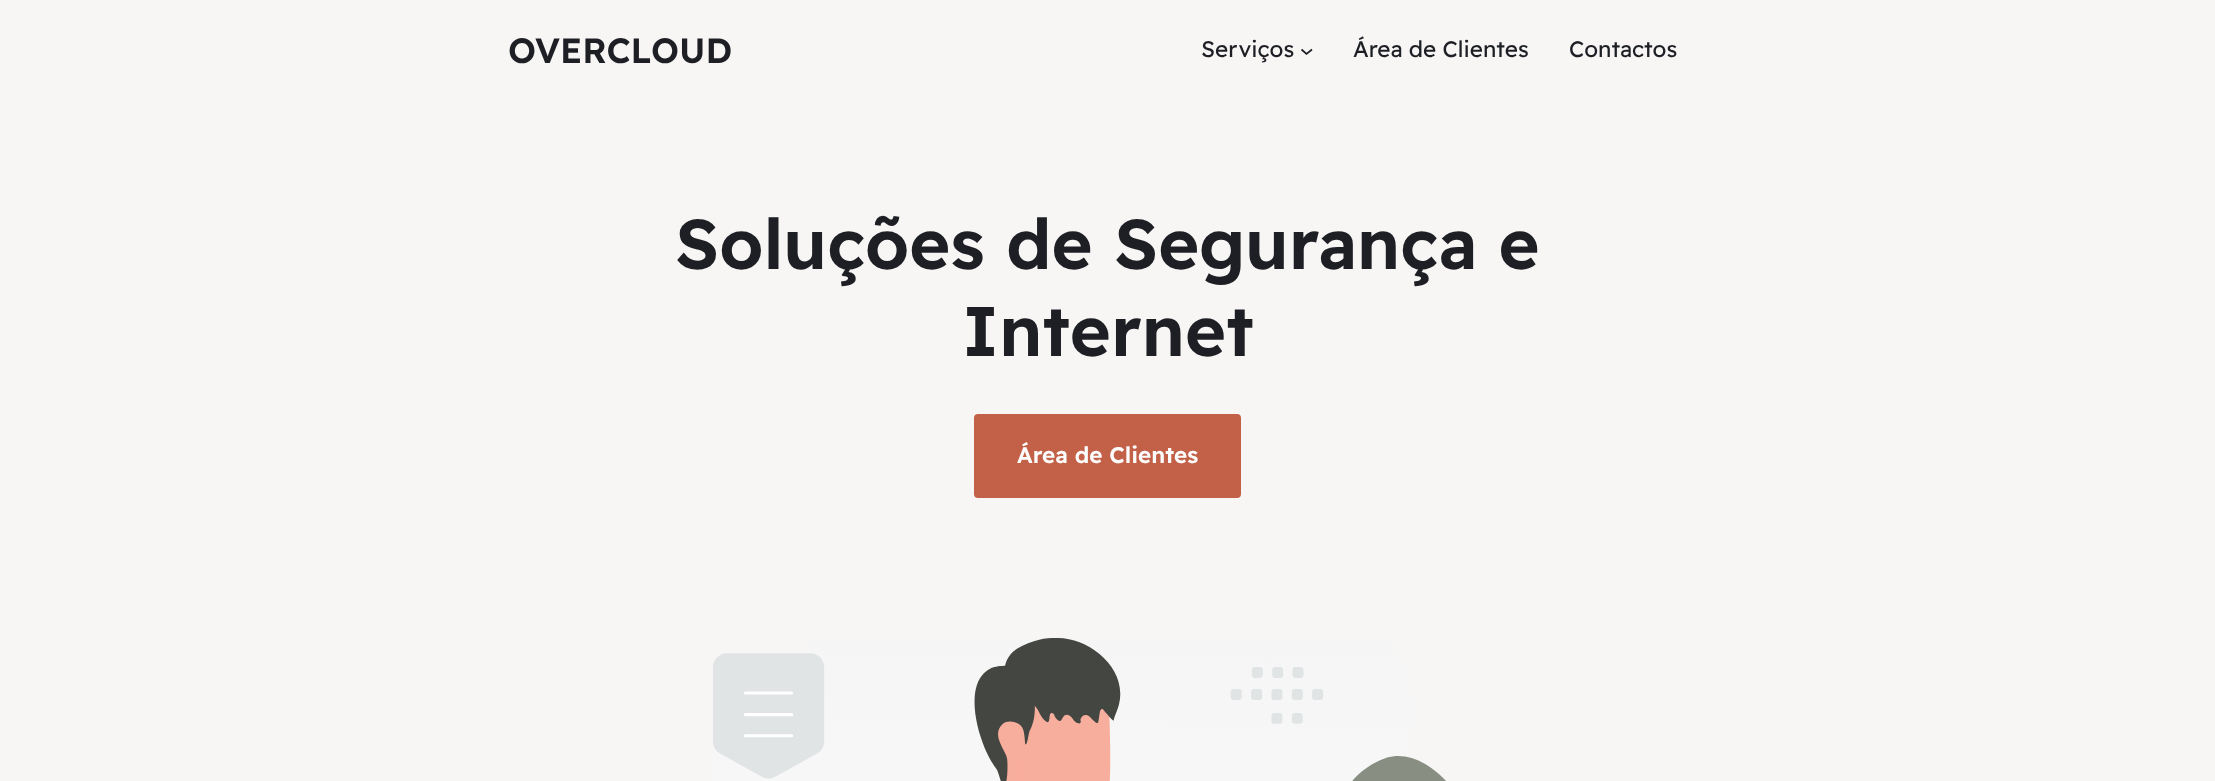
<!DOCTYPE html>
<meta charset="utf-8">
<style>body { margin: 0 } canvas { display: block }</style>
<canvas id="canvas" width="2215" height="781"></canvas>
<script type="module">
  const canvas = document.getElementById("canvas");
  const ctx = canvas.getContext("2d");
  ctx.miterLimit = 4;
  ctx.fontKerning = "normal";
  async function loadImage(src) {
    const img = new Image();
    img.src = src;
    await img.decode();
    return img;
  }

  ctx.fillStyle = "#f7f6f5";
  ctx.fillRect(0, 0, 2215, 781);
  ctx.font = "600 35px Readex Pro";
  ctx.fillStyle = "#1d1f25";
  ctx.fillText("OVERCLOUD", 508, 63);
  ctx.font = "22.5px Readex Pro";
  ctx.fillText("Serviços", 1201, 57);
  ctx.beginPath();
  ctx.moveTo(1301.5, 49.5);
  ctx.lineTo(1306.5, 54);
  ctx.lineTo(1312, 49.5);
  ctx.strokeStyle = "#1d1f25";
  ctx.lineWidth = 1.7;
  ctx.stroke();
  ctx.fillText("Área de Clientes", 1353, 57);
  ctx.fillText("Contactos", 1569, 57);
  ctx.font = "600 70px Readex Pro";
  ctx.fillText("Soluções de Segurança e", 675, 269);
  ctx.fillText("Internet", 962, 356);
  ctx.fillStyle = "#c26148";
  ctx.beginPath();
  ctx.roundRect(974, 414, 267, 84, 4);
  ctx.fill();
  ctx.font = "600 22.5px Readex Pro";
  ctx.fillStyle = "#fdfdfd";
  ctx.fillText("Área de Clientes", 1017, 463);
  ctx.drawImage(await loadImage("img1.png"), 713, 638, 733, 143);
</script>
